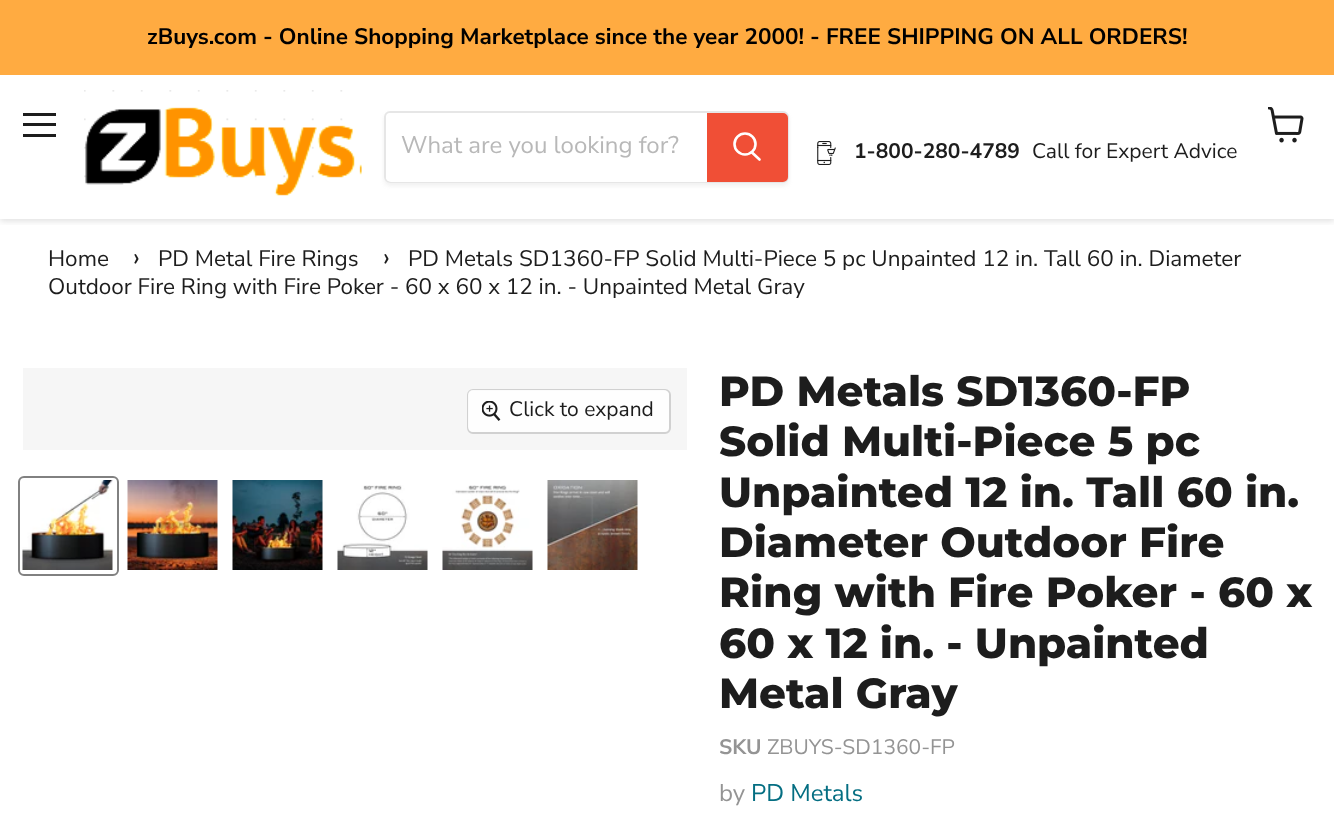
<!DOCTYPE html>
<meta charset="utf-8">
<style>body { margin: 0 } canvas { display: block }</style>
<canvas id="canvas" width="1334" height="821"></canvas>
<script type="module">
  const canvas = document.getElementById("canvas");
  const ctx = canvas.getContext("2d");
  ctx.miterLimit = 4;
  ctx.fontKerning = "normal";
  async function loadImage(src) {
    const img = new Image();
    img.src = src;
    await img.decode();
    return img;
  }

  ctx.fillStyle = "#ffffff";
  ctx.fillRect(0, 0, 1334, 821);
  ctx.save();
  ctx.beginPath();
  ctx.rect(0, 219, 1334, 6);
  ctx.clip();
  ctx.fillStyle = "rgba(128, 128, 128, 0.25)";
  ctx.filter = "blur(3px)";
  ctx.beginPath();
  ctx.rect(0, 77, 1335, 144);
  ctx.fill();
  ctx.filter = "none";
  ctx.restore();
  ctx.fillStyle = "#ffab41";
  ctx.fillRect(0, 0, 1334, 75);
  ctx.font = "bold 22.5px Nunito Sans";
  ctx.fillStyle = "#000000";
  ctx.fillText("zBuys.com - Online Shopping Marketplace since the year 2000! - FREE SHIPPING ON ALL ORDERS!", 147, 44);
  ctx.fillStyle = "#1d1d1d";
  ctx.fillRect(23, 113, 33, 3);
  ctx.fillRect(23, 123, 33, 3);
  ctx.fillRect(23, 134, 33, 3);
  ctx.drawImage(await loadImage("img1.png"), 1268, 107, 36, 36);
  ctx.drawImage(await loadImage("img2.png"), 84, 90, 278, 106);
  ctx.save();
  ctx.beginPath();
  ctx.moveTo(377, 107);
  ctx.lineTo(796, 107);
  ctx.lineTo(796, 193);
  ctx.lineTo(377, 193);
  ctx.closePath();
  ctx.moveTo(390, 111);
  ctx.lineTo(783, 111);
  ctx.bezierCurveTo(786.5, 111, 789, 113.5, 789, 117);
  ctx.lineTo(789, 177);
  ctx.bezierCurveTo(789, 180.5, 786.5, 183, 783, 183);
  ctx.lineTo(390, 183);
  ctx.bezierCurveTo(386.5, 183, 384, 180.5, 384, 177);
  ctx.lineTo(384, 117);
  ctx.bezierCurveTo(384, 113.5, 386.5, 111, 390, 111);
  ctx.closePath();
  ctx.clip("evenodd");
  ctx.fillStyle = "rgba(128, 128, 128, 0.11)";
  ctx.filter = "blur(2px)";
  ctx.beginPath();
  ctx.roundRect(384, 114, 405, 72, 6);
  ctx.fill();
  ctx.filter = "none";
  ctx.restore();
  ctx.beginPath();
  ctx.roundRect(385, 112, 403, 70, 5);
  ctx.strokeStyle = "rgba(128, 128, 128, 0.2)";
  ctx.lineWidth = 2;
  ctx.stroke();
  ctx.fillStyle = "#ffffff";
  ctx.beginPath();
  ctx.roundRect(386, 113, 321, 69, [5, 0, 0, 5]);
  ctx.fill();
  ctx.font = "24px Nunito Sans";
  ctx.fillStyle = "#b8b8b8";
  ctx.fillText("What are you looking for?", 401, 153);
  ctx.fillStyle = "#f04f36";
  ctx.beginPath();
  ctx.roundRect(708, 114, 79, 67, [0, 4, 4, 0]);
  ctx.fill();
  ctx.strokeStyle = "#f04f36";
  ctx.stroke();
  ctx.beginPath();
  ctx.moveTo(759.5, 159.5);
  ctx.lineTo(752, 152.5);
  ctx.strokeStyle = "#ffffff";
  ctx.lineWidth = 2.6;
  ctx.lineCap = "round";
  ctx.stroke();
  ctx.beginPath();
  ctx.arc(745, 144, 10.5, 0, Math.PI * 2);
  ctx.stroke();
  ctx.drawImage(await loadImage("img3.png"), 817, 141, 19, 24);
  ctx.font = "bold 21px Nunito Sans";
  ctx.fillStyle = "#1d1d1d";
  ctx.fillText("1-800-280-4789", 854, 158);
  ctx.font = "21px Nunito Sans";
  ctx.fillText("Call for Expert Advice", 1032, 158);
  ctx.font = "22.5px Nunito Sans";
  ctx.fillText("Home", 48, 266);
  ctx.font = "27px Nunito Sans";
  ctx.fillText("›", 133, 266);
  ctx.font = "22.5px Nunito Sans";
  ctx.fillText("PD Metal Fire Rings", 158, 266);
  ctx.font = "27px Nunito Sans";
  ctx.fillText("›", 383, 266);
  ctx.font = "22.5px Nunito Sans";
  ctx.fillText("PD Metals SD1360-FP Solid Multi-Piece 5 pc Unpainted 12 in. Tall 60 in. Diameter", 408, 266);
  ctx.fillText("Outdoor Fire Ring with Fire Poker - 60 x 60 x 12 in. - Unpainted Metal Gray", 48, 294);
  ctx.fillStyle = "#f6f6f6";
  ctx.fillRect(23, 368, 664, 82);
  ctx.beginPath();
  ctx.roundRect(468, 390, 202, 43, 5);
  ctx.strokeStyle = "#d1d1d1";
  ctx.lineWidth = 2;
  ctx.stroke();
  ctx.fillStyle = "rgba(255, 255, 255, 0.9)";
  ctx.beginPath();
  ctx.roundRect(468, 390, 201, 42, 5);
  ctx.fill();
  ctx.drawImage(await loadImage("img4.png"), 482, 401, 19, 20);
  ctx.font = "21px Nunito Sans";
  ctx.fillStyle = "#1d1d1d";
  ctx.fillText("Click to expand", 509, 416);
  ctx.beginPath();
  ctx.roundRect(19, 477, 99, 98, 5);
  ctx.strokeStyle = "#818181";
  ctx.stroke();
  ctx.drawImage(await loadImage("img5.png"), 22, 480, 91, 90);
  ctx.drawImage(await loadImage("img6.png"), 127, 480, 91, 90);
  ctx.drawImage(await loadImage("img7.png"), 232, 480, 91, 90);
  ctx.drawImage(await loadImage("img8.png"), 337, 485, 91, 85);
  ctx.drawImage(await loadImage("img9.png"), 442, 485, 91, 85);
  ctx.drawImage(await loadImage("img10.png"), 547, 480, 91, 90);
  ctx.font = "800 42px Montserrat";
  ctx.fillText("PD Metals SD1360-FP", 719, 406);
  ctx.fillText("Solid Multi-Piece 5 pc", 719, 456);
  ctx.fillText("Unpainted 12 in. Tall 60 in.", 719, 507);
  ctx.fillText("Diameter Outdoor Fire", 719, 557);
  ctx.fillText("Ring with Fire Poker - 60 x", 719, 607);
  ctx.fillText("60 x 12 in. - Unpainted", 719, 658);
  ctx.fillText("Metal Gray", 719, 708);
  ctx.font = "bold 21px Nunito Sans";
  ctx.fillStyle = "#949494";
  ctx.fillText("SKU", 719, 754);
  ctx.font = "21px Nunito Sans";
  ctx.fillText("ZBUYS-SD1360-FP", 767, 754);
  ctx.font = "24px Nunito Sans";
  ctx.fillText("by", 719, 801);
  ctx.fillStyle = "#046e82";
  ctx.fillText("PD Metals", 751, 801);
</script>
